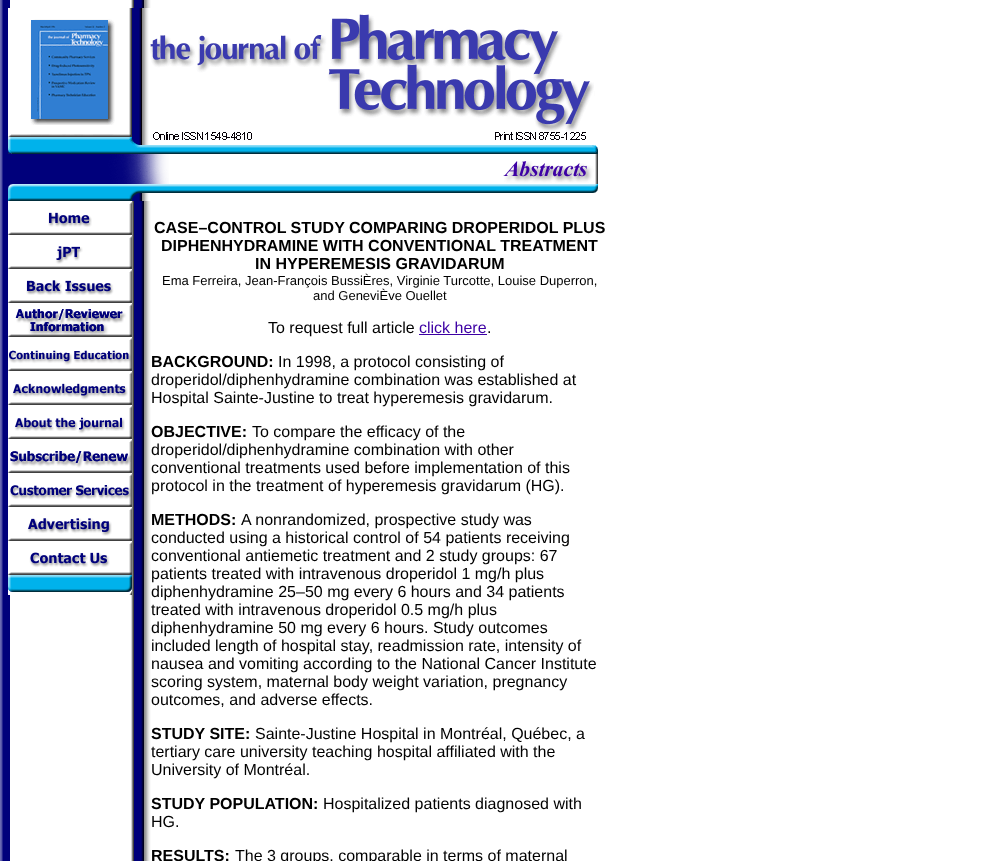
<!DOCTYPE html>
<meta charset="utf-8">
<style>body { margin: 0 } canvas { display: block }</style>
<canvas id="canvas" width="996" height="861"></canvas>
<script type="module">
  const canvas = document.getElementById("canvas");
  const ctx = canvas.getContext("2d");
  ctx.miterLimit = 4;
  ctx.fontKerning = "normal";
  async function loadImage(src) {
    const img = new Image();
    img.src = src;
    await img.decode();
    return img;
  }

  ctx.fillStyle = "#ffffff";
  ctx.fillRect(0, 0, 996, 861);
  ctx.drawImage(await loadImage("img1.png"), 0, 0, 151, 861);
  ctx.drawImage(await loadImage("img2.png"), 8, 8, 124, 146);
  ctx.drawImage(await loadImage("img3.png"), 132, 8, 466, 146);
  ctx.drawImage(await loadImage("img4.png"), 10, 154, 159, 30);
  ctx.drawImage(await loadImage("img5.png"), 503, 154, 95, 30);
  ctx.drawImage(await loadImage("img6.png"), 8, 184, 590, 17);
  ctx.drawImage(await loadImage("img7.png"), 8, 201, 124, 34);
  ctx.drawImage(await loadImage("img8.png"), 8, 235, 124, 34);
  ctx.drawImage(await loadImage("img9.png"), 8, 269, 124, 34);
  ctx.drawImage(await loadImage("img10.png"), 8, 303, 124, 34);
  ctx.drawImage(await loadImage("img11.png"), 8, 337, 124, 34);
  ctx.drawImage(await loadImage("img12.png"), 8, 371, 124, 34);
  ctx.drawImage(await loadImage("img13.png"), 8, 405, 124, 34);
  ctx.drawImage(await loadImage("img14.png"), 8, 439, 124, 34);
  ctx.drawImage(await loadImage("img15.png"), 8, 473, 124, 34);
  ctx.drawImage(await loadImage("img16.png"), 8, 507, 124, 34);
  ctx.drawImage(await loadImage("img17.png"), 8, 541, 124, 34);
  ctx.drawImage(await loadImage("img18.png"), 8, 575, 124, 20);
  ctx.font = "bold 16px Liberation Sans";
  ctx.fillStyle = "#000000";
  ctx.fillText("CASE–CONTROL STUDY COMPARING DROPERIDOL PLUS", 154, 233);
  ctx.fillText("DIPHENHYDRAMINE WITH CONVENTIONAL TREATMENT", 161, 251);
  ctx.fillText("IN HYPEREMESIS GRAVIDARUM", 255, 269);
  ctx.font = "13px Liberation Sans";
  ctx.fillText("Ema Ferreira, Jean-François BussiÈres, Virginie Turcotte, Louise Duperron,", 162, 285);
  ctx.fillText("and GeneviÈve Ouellet", 313, 300);
  ctx.font = "16px Liberation Sans";
  ctx.fillText("To request full article", 268, 333);
  ctx.fillStyle = "#3d00a4";
  ctx.fillText("click here", 419, 333);
  ctx.fillStyle = "#000000";
  ctx.fillText(".", 487, 333);
  ctx.fillStyle = "#3d00a4";
  ctx.fillRect(419, 334, 68, 1);
  ctx.font = "bold 16px Liberation Sans";
  ctx.fillStyle = "#000000";
  ctx.fillText("BACKGROUND:", 151, 367);
  ctx.font = "16px Liberation Sans";
  ctx.fillText("In 1998, a protocol consisting of", 278, 367);
  ctx.fillText("droperidol/diphenhydramine combination was established at", 151, 385);
  ctx.fillText("Hospital Sainte-Justine to treat hyperemesis gravidarum.", 151, 403);
  ctx.font = "bold 16px Liberation Sans";
  ctx.fillText("OBJECTIVE:", 151, 437);
  ctx.font = "16px Liberation Sans";
  ctx.fillText("To compare the efficacy of the", 252, 437);
  ctx.fillText("droperidol/diphenhydramine combination with other", 151, 455);
  ctx.fillText("conventional treatments used before implementation of this", 151, 473);
  ctx.fillText("protocol in the treatment of hyperemesis gravidarum (HG).", 151, 491);
  ctx.font = "bold 16px Liberation Sans";
  ctx.fillText("METHODS:", 151, 525);
  ctx.font = "16px Liberation Sans";
  ctx.fillText("A nonrandomized, prospective study was", 241, 525);
  ctx.fillText("conducted using a historical control of 54 patients receiving", 151, 543);
  ctx.fillText("conventional antiemetic treatment and 2 study groups: 67", 151, 561);
  ctx.fillText("patients treated with intravenous droperidol 1 mg/h plus", 151, 579);
  ctx.fillText("diphenhydramine 25–50 mg every 6 hours and 34 patients", 151, 597);
  ctx.fillText("treated with intravenous droperidol 0.5 mg/h plus", 151, 615);
  ctx.fillText("diphenhydramine 50 mg every 6 hours. Study outcomes", 151, 633);
  ctx.fillText("included length of hospital stay, readmission rate, intensity of", 151, 651);
  ctx.fillText("nausea and vomiting according to the National Cancer Institute", 151, 669);
  ctx.fillText("scoring system, maternal body weight variation, pregnancy", 151, 687);
  ctx.fillText("outcomes, and adverse effects.", 151, 705);
  ctx.font = "bold 16px Liberation Sans";
  ctx.fillText("STUDY SITE:", 151, 739);
  ctx.font = "16px Liberation Sans";
  ctx.fillText("Sainte-Justine Hospital in Montréal, Québec, a", 255, 739);
  ctx.fillText("tertiary care university teaching hospital affiliated with the", 151, 757);
  ctx.fillText("University of Montréal.", 151, 775);
  ctx.font = "bold 16px Liberation Sans";
  ctx.fillText("STUDY POPULATION:", 151, 809);
  ctx.font = "16px Liberation Sans";
  ctx.fillText("Hospitalized patients diagnosed with", 323, 809);
  ctx.fillText("HG.", 151, 827);
  ctx.font = "bold 16px Liberation Sans";
  ctx.fillText("RESULTS:", 151, 861);
  ctx.font = "16px Liberation Sans";
  ctx.fillText("The 3 groups, comparable in terms of maternal", 235, 861);
</script>
